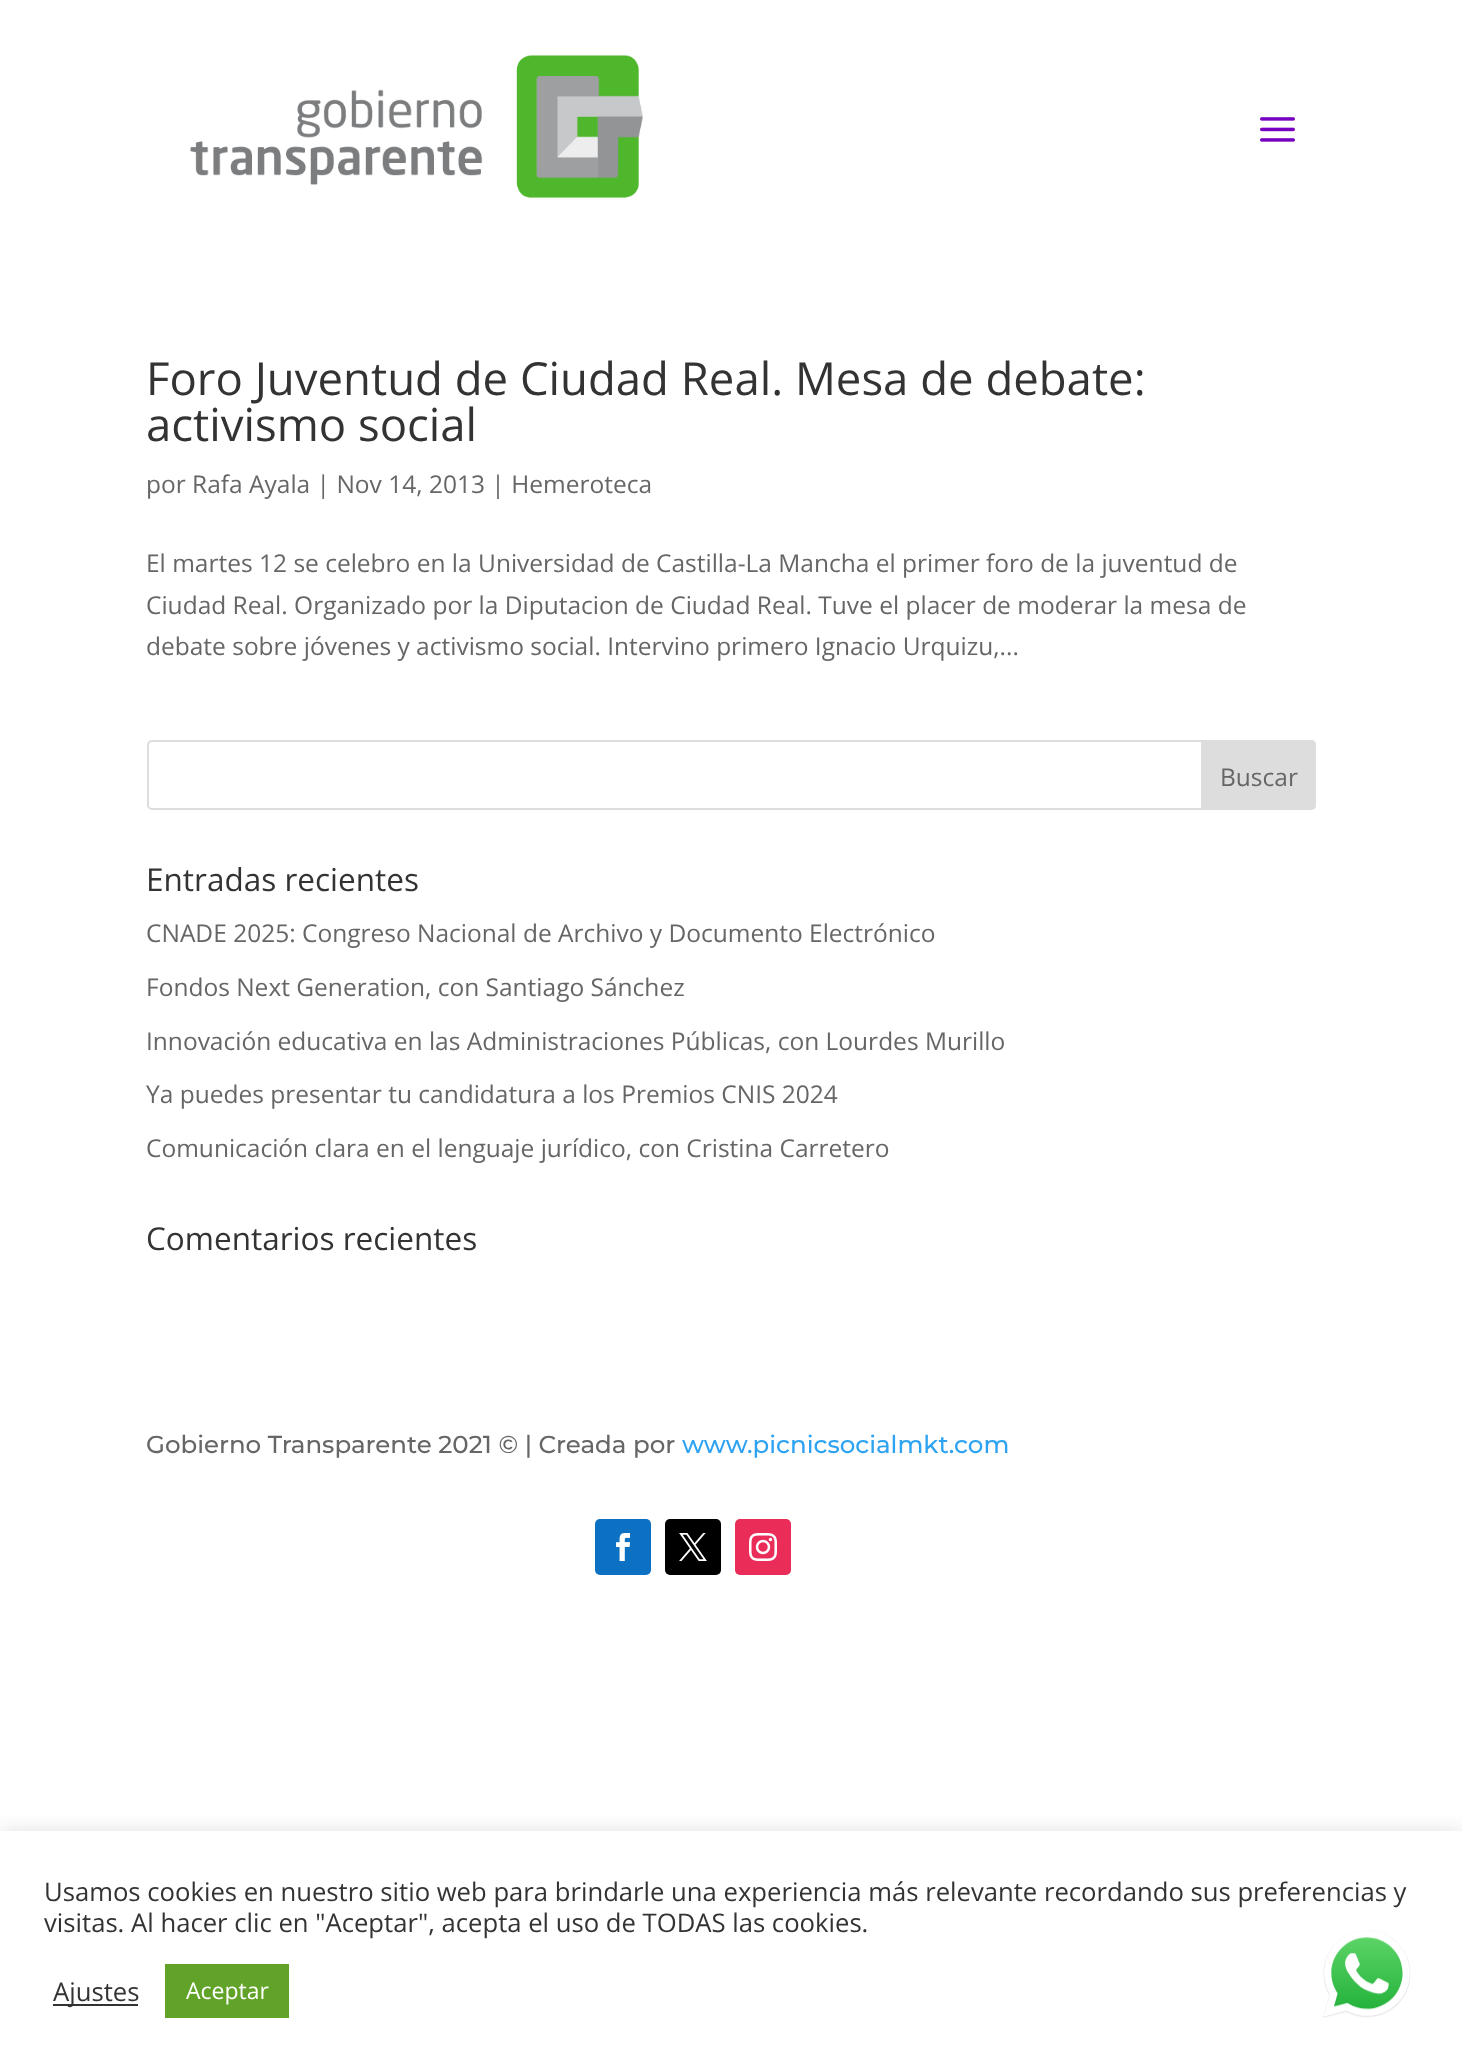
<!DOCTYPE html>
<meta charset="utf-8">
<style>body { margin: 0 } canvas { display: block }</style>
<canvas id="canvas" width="1462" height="2069"></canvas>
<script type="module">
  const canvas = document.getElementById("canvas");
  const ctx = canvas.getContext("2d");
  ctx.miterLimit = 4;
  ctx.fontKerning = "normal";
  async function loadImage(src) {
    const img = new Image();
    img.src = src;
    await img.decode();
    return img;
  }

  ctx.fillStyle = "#ffffff";
  ctx.fillRect(0, 0, 1462, 2069);
  ctx.drawImage(await loadImage("img1.png"), 190, 55, 453, 143);
  ctx.drawImage(await loadImage("img2.png"), 1260, 117, 35, 25);
  ctx.font = "45.5px Open Sans";
  ctx.fillStyle = "#333333";
  ctx.fillText("Foro Juventud de Ciudad Real. Mesa de debate:", 146, 395);
  ctx.fillText("activismo social", 146, 441);
  ctx.font = "24.5px Open Sans";
  ctx.fillStyle = "#666666";
  ctx.fillText("por Rafa Ayala | Nov 14, 2013 | Hemeroteca", 146, 493);
  ctx.fillText("El martes 12 se celebro en la Universidad de Castilla-La Mancha el primer foro de la juventud de", 146, 572);
  ctx.fillText("Ciudad Real. Organizado por la Diputacion de Ciudad Real. Tuve el placer de moderar la mesa de", 146, 614);
  ctx.fillText("debate sobre jóvenes y activismo social. Intervino primero Ignacio Urquizu,...", 146, 655);
  ctx.beginPath();
  ctx.roundRect(148, 741, 1167, 68, 4);
  ctx.strokeStyle = "#dddddd";
  ctx.lineWidth = 2;
  ctx.stroke();
  ctx.fillStyle = "#dddddd";
  ctx.beginPath();
  ctx.roundRect(1202, 741, 113, 68, [0, 4, 4, 0]);
  ctx.fill();
  ctx.stroke();
  ctx.fillStyle = "#666666";
  ctx.fillText("Buscar", 1220, 786);
  ctx.font = "31.5px Open Sans";
  ctx.fillStyle = "#333333";
  ctx.fillText("Entradas recientes", 146, 891);
  ctx.font = "24.5px Open Sans";
  ctx.fillStyle = "#666666";
  ctx.fillText("CNADE 2025: Congreso Nacional de Archivo y Documento Electrónico", 146, 942);
  ctx.fillText("Fondos Next Generation, con Santiago Sánchez", 146, 996);
  ctx.fillText("Innovación educativa en las Administraciones Públicas, con Lourdes Murillo", 146, 1050);
  ctx.fillText("Ya puedes presentar tu candidatura a los Premios CNIS 2024", 146, 1103);
  ctx.fillText("Comunicación clara en el lenguaje jurídico, con Cristina Carretero", 146, 1157);
  ctx.font = "31.5px Open Sans";
  ctx.fillStyle = "#333333";
  ctx.fillText("Comentarios recientes", 146, 1250);
  ctx.font = "100 24.5px Montserrat";
  ctx.fillStyle = "#666666";
  ctx.fillText("Gobierno Transparente 2021 © | Creada por", 146, 1453);
  ctx.fillStyle = "#2ea3f2";
  ctx.fillText("www.picnicsocialmkt.com", 682, 1453);
  ctx.fillStyle = "#0c71c3";
  ctx.beginPath();
  ctx.roundRect(595, 1519, 56, 56, 5);
  ctx.fill();
  ctx.drawImage(await loadImage("img3.png"), 616, 1533, 15, 28);
  ctx.fillStyle = "#000000";
  ctx.beginPath();
  ctx.roundRect(665, 1519, 56, 56, 5);
  ctx.fill();
  ctx.drawImage(await loadImage("img4.png"), 679, 1533, 28, 28);
  ctx.fillStyle = "#ea2c59";
  ctx.beginPath();
  ctx.roundRect(735, 1519, 56, 56, 5);
  ctx.fill();
  ctx.drawImage(await loadImage("img5.png"), 749, 1533, 28, 28);
  ctx.save();
  ctx.beginPath();
  ctx.rect(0, 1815, 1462, 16);
  ctx.clip();
  ctx.fillStyle = "rgba(172, 171, 171, 0.3)";
  ctx.filter = "blur(9px)";
  ctx.beginPath();
  ctx.rect(0, 1829, 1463, 240);
  ctx.fill();
  ctx.filter = "none";
  ctx.restore();
  ctx.font = "25.67px Open Sans";
  ctx.fillStyle = "#333333";
  ctx.fillText("Usamos cookies en nuestro sitio web para brindarle una experiencia más relevante recordando sus preferencias y", 44, 1901);
  ctx.fillText("visitas. Al hacer clic en \"Aceptar\", acepta el uso de TODAS las cookies.", 44, 1932);
  ctx.fillRect(53, 2004, 85, 2);
  ctx.fillText("Ajustes", 53, 2001);
  ctx.fillStyle = "#61a229";
  ctx.fillRect(165, 1964, 124, 54);
  ctx.font = "23px Open Sans";
  ctx.fillStyle = "#ffffff";
  ctx.fillText("Aceptar", 186, 1999);
  ctx.drawImage(await loadImage("img6.png"), 1323, 1930, 88, 88);
</script>
